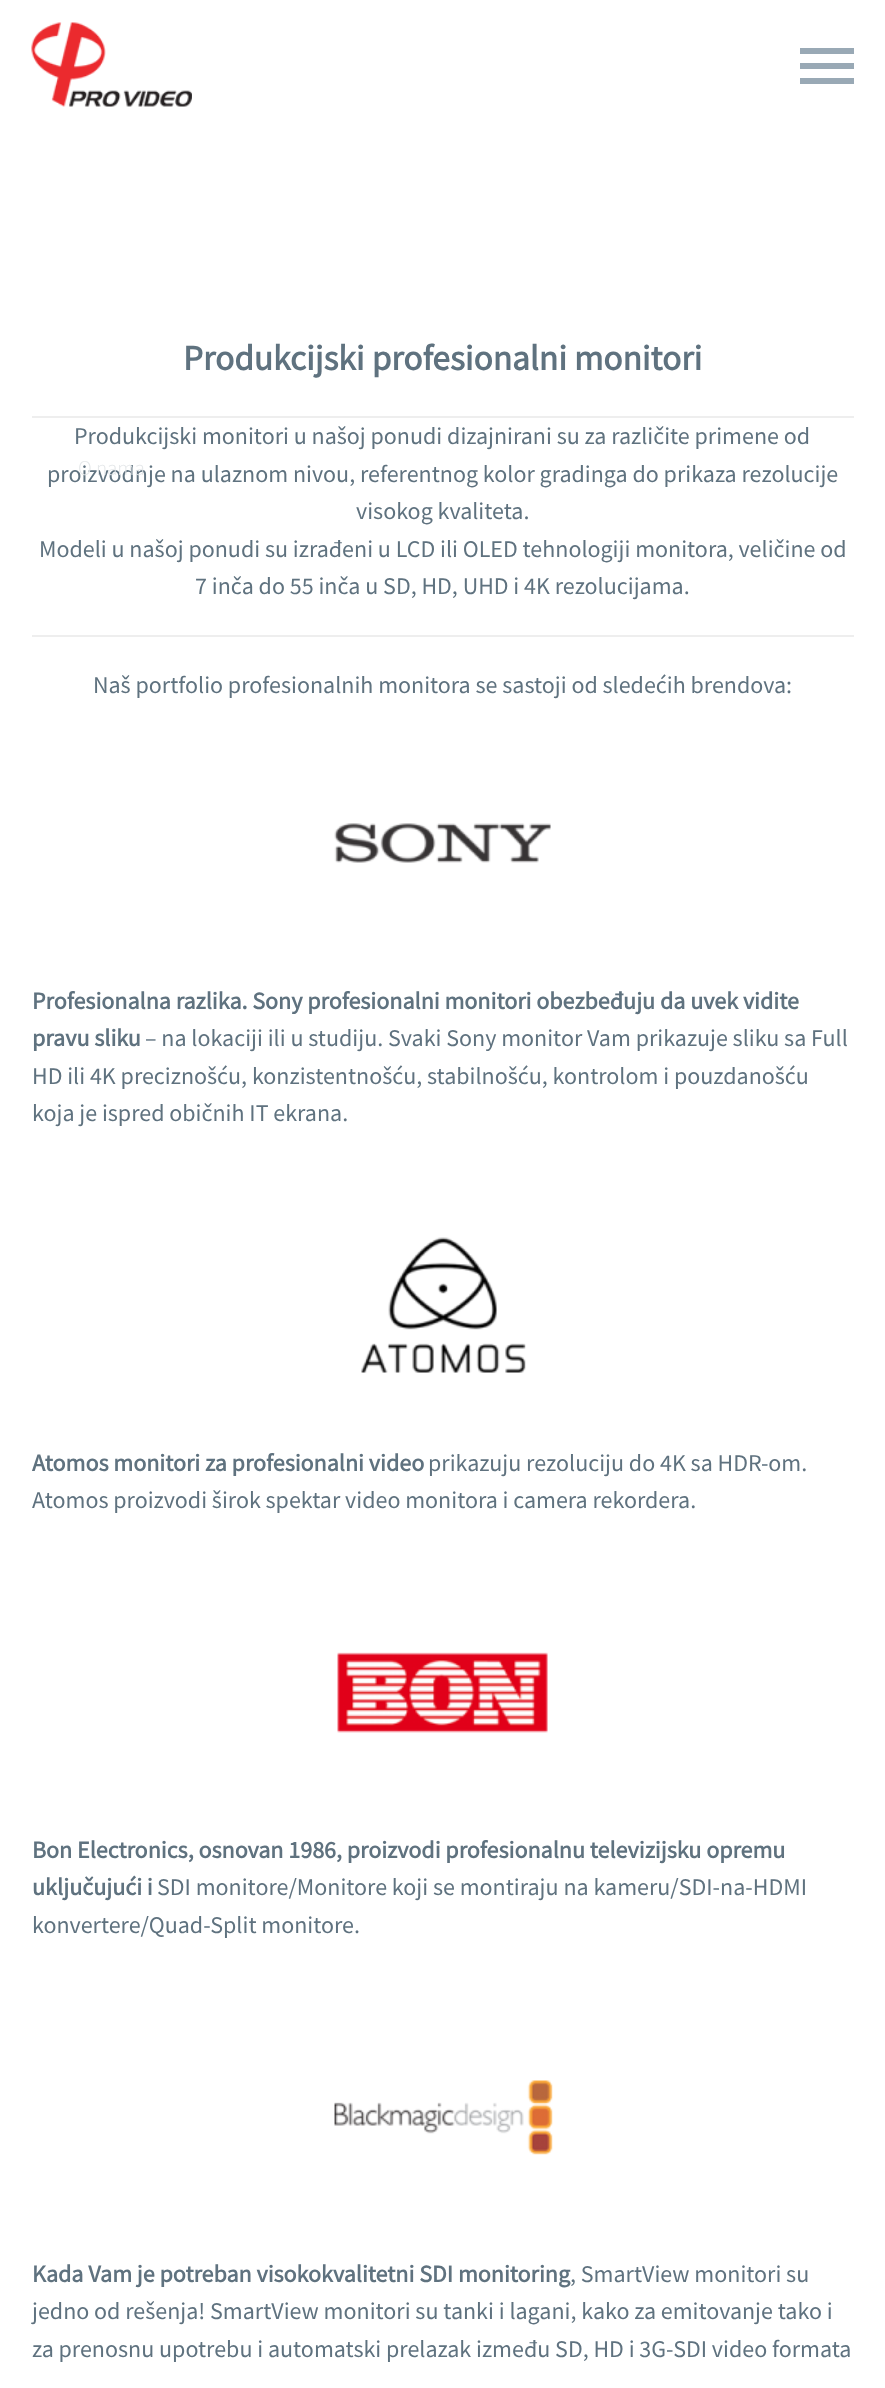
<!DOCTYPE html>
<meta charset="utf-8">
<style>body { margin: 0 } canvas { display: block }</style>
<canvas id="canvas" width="885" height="2388"></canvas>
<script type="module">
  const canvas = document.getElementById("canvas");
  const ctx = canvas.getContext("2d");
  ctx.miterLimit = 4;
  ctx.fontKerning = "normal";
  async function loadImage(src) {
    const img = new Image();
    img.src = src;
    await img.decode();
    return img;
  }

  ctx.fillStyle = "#ffffff";
  ctx.fillRect(0, 0, 885, 2388);
  ctx.font = "bold 35.4px Source Sans Pro";
  ctx.fillStyle = "#5f727f";
  ctx.fillText("Produkcijski profesionalni monitori", 183, 370);
  ctx.fillStyle = "#eeeeee";
  ctx.fillRect(32, 416, 822, 2);
  ctx.font = "24px Source Sans Pro";
  ctx.fillStyle = "#5f727f";
  ctx.fillText("Produkcijski monitori u našoj ponudi dizajnirani su za različite primene od", 74, 444);
  ctx.fillText("proizvodnje na ulaznom nivou, referentnog kolor gradinga do prikaza rezolucije", 47, 482);
  ctx.fillText("visokog kvaliteta.", 356, 519);
  ctx.fillText("Modeli u našoj ponudi su izrađeni u LCD ili OLED tehnologiji monitora, veličine od", 39, 557);
  ctx.fillText("7 inča do 55 inča u SD, HD, UHD i 4K rezolucijama.", 195, 594);
  ctx.fillStyle = "#eeeeee";
  ctx.fillRect(32, 635, 822, 2);
  ctx.fillStyle = "#5f727f";
  ctx.fillText("Naš portfolio profesionalnih monitora se sastoji od sledećih brendova:", 93, 693);
  ctx.drawImage(await loadImage("img1.png"), 334, 823, 217, 40);
  ctx.font = "bold 24px Source Sans Pro";
  ctx.fillText("Profesionalna razlika. Sony profesionalni monitori obezbeđuju da uvek vidite", 32, 1009);
  ctx.fillText("pravu sliku", 32, 1046);
  ctx.font = "24px Source Sans Pro";
  ctx.fillText("– na lokaciji ili u studiju. Svaki Sony monitor Vam prikazuje sliku sa Full", 145, 1046);
  ctx.fillText("HD ili 4K preciznošću, konzistentnošću, stabilnošću, kontrolom i pouzdanošću", 32, 1084);
  ctx.fillText("koja je ispred običnih IT ekrana.", 32, 1121);
  ctx.drawImage(await loadImage("img2.png"), 361, 1237, 165, 136);
  ctx.font = "bold 24px Source Sans Pro";
  ctx.fillText("Atomos monitori za profesionalni video", 32, 1471);
  ctx.font = "24px Source Sans Pro";
  ctx.fillText("prikazuju rezoluciju do 4K sa HDR-om.", 428, 1471);
  ctx.fillText("Atomos proizvodi širok spektar video monitora i camera rekordera.", 32, 1508);
  ctx.drawImage(await loadImage("img3.png"), 337, 1652, 211, 81);
  ctx.font = "bold 24px Source Sans Pro";
  ctx.fillText("Bon Electronics, osnovan 1986, proizvodi profesionalnu televizijsku opremu", 32, 1858);
  ctx.fillText("uključujući i", 32, 1895);
  ctx.font = "24px Source Sans Pro";
  ctx.fillText("SDI monitore/Monitore koji se montiraju na kameru/SDI-na-HDMI", 157, 1895);
  ctx.fillText("konvertere/Quad-Split monitore.", 32, 1933);
  ctx.drawImage(await loadImage("img4.png"), 334, 2080, 219, 75);
  ctx.font = "bold 24px Source Sans Pro";
  ctx.fillText("Kada Vam je potreban visokokvalitetni SDI monitoring", 32, 2282);
  ctx.font = "24px Source Sans Pro";
  ctx.fillText(", SmartView monitori su", 570, 2282);
  ctx.fillText("jedno od rešenja! SmartView monitori su tanki i lagani, kako za emitovanje tako i", 32, 2319);
  ctx.fillText("za prenosnu upotrebu i automatski prelazak između SD, HD i 3G-SDI video formata", 32, 2357);
  ctx.drawImage(await loadImage("img5.png"), 31, 22, 161, 85);
  ctx.fillStyle = "#99a9b5";
  ctx.fillRect(800, 48, 54, 6);
  ctx.fillRect(800, 63, 54, 6);
  ctx.fillRect(800, 78, 54, 6);
  ctx.font = "300 21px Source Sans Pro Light";
  ctx.fillStyle = "#e4e7e9";
  ctx.fillText("O nama", 78, 475);
</script>
